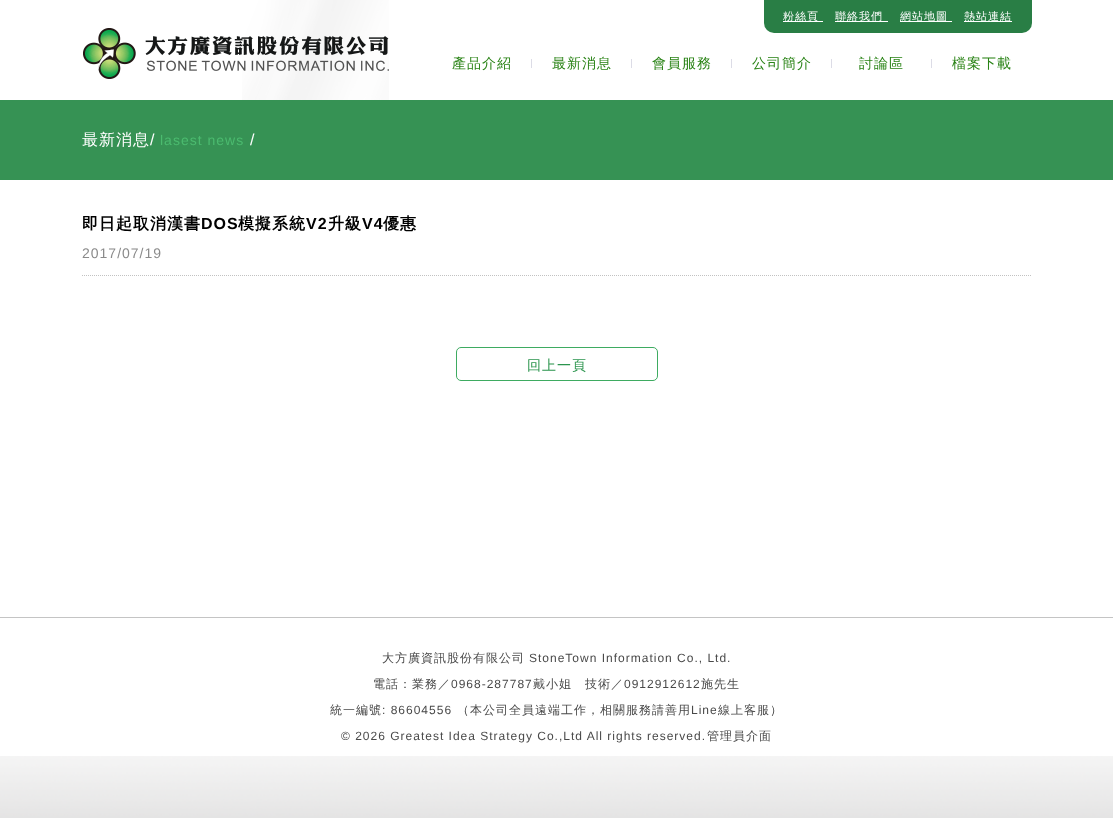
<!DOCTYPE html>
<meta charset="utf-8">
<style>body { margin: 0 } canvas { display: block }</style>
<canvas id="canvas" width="1113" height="818"></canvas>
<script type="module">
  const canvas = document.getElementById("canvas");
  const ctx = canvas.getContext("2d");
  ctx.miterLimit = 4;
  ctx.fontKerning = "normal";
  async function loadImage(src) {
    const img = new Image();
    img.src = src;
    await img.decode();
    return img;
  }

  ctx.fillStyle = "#ffffff";
  ctx.fillRect(0, 0, 1113, 818);
  ctx.drawImage(await loadImage("img1.png"), 242, 0, 147, 100);
  ctx.drawImage(await loadImage("img2.png"), 83, 28, 306, 51);
  ctx.fillStyle = "#297e45";
  ctx.beginPath();
  ctx.roundRect(764, 0, 268, 33, [0, 0, 10, 10]);
  ctx.fill();
  ctx.fillStyle = "#ffffff";
  ctx.fillRect(783, 21, 40, 1);
  ctx.letterSpacing = "1px";
  ctx.font = "500 11px WenQuanYi Zen Hei";
  ctx.fillText("粉絲頁", 783, 20);
  ctx.fillRect(835, 21, 53, 1);
  ctx.fillText("聯絡我們", 835, 20);
  ctx.fillRect(900, 21, 52, 1);
  ctx.fillText("網站地圖", 900, 20);
  ctx.fillRect(964, 21, 48, 1);
  ctx.fillText("熱站連結", 964, 20);
  ctx.font = "500 14px WenQuanYi Zen Hei";
  ctx.fillStyle = "#298315";
  ctx.fillText("產品介紹", 452, 68);
  ctx.fillStyle = "#dcdce6";
  ctx.fillRect(531, 59, 1, 9);
  ctx.fillStyle = "#298315";
  ctx.fillText("最新消息", 552, 68);
  ctx.fillStyle = "#dcdce6";
  ctx.fillRect(631, 59, 1, 9);
  ctx.fillStyle = "#298315";
  ctx.fillText("會員服務", 652, 68);
  ctx.fillStyle = "#dcdce6";
  ctx.fillRect(731, 59, 1, 9);
  ctx.fillStyle = "#298315";
  ctx.fillText("公司簡介", 752, 68);
  ctx.fillStyle = "#dcdce6";
  ctx.fillRect(831, 59, 1, 9);
  ctx.fillStyle = "#298315";
  ctx.fillText("討論區", 859, 68);
  ctx.fillStyle = "#dcdce6";
  ctx.fillRect(931, 59, 1, 9);
  ctx.fillStyle = "#298315";
  ctx.fillText("檔案下載", 952, 68);
  ctx.fillStyle = "#369254";
  ctx.fillRect(0, 100, 1113, 80);
  ctx.font = "500 16px WenQuanYi Zen Hei";
  ctx.fillStyle = "#ffffff";
  ctx.fillText("最新消息", 82, 145);
  ctx.font = "16px Liberation Sans";
  ctx.fillText("/", 150, 145);
  ctx.font = "14px Liberation Sans";
  ctx.fillStyle = "#4bbb6f";
  ctx.fillText("lasest news", 160, 145);
  ctx.font = "16px Liberation Sans";
  ctx.fillStyle = "#ffffff";
  ctx.fillText("/", 250, 145);
  ctx.font = "bold 16px WenQuanYi Zen Hei";
  ctx.fillStyle = "#000000";
  ctx.fillText("即日起取消漢書", 82, 229);
  ctx.font = "bold 16px Liberation Sans";
  ctx.fillText("DOS", 201, 229);
  ctx.font = "bold 16px WenQuanYi Zen Hei";
  ctx.fillText("模擬系統", 238, 229);
  ctx.font = "bold 16px Liberation Sans";
  ctx.fillText("V2", 306, 229);
  ctx.font = "bold 16px WenQuanYi Zen Hei";
  ctx.fillText("升級", 328, 229);
  ctx.font = "bold 16px Liberation Sans";
  ctx.fillText("V4", 362, 229);
  ctx.font = "bold 16px WenQuanYi Zen Hei";
  ctx.fillText("優惠", 383, 229);
  ctx.beginPath();
  ctx.moveTo(82, 275.5);
  ctx.lineTo(1032, 275.5);
  ctx.strokeStyle = "#c2c2c2";
  ctx.setLineDash([1, 1]);
  ctx.stroke();
  ctx.font = "14px Liberation Sans";
  ctx.fillStyle = "#8a8a8a";
  ctx.fillText("2017/07/19", 82, 258);
  ctx.beginPath();
  ctx.roundRect(456.5, 347.5, 201, 33, 4.5);
  ctx.strokeStyle = "#3eab61";
  ctx.setLineDash([]);
  ctx.stroke();
  ctx.font = "500 14px WenQuanYi Zen Hei";
  ctx.fillStyle = "#2c954e";
  ctx.fillText("回上一頁", 527, 370);
  ctx.drawImage(await loadImage("img3.png"), 0, 756, 1113, 62);
  ctx.fillStyle = "#c4c4c4";
  ctx.fillRect(0, 617, 1113, 1);
  ctx.font = "500 12px WenQuanYi Zen Hei";
  ctx.fillStyle = "#494949";
  ctx.fillText("大方廣資訊股份有限公司", 382, 662);
  ctx.font = "12px Liberation Sans";
  ctx.fillText("StoneTown Information Co., Ltd.", 529, 662);
  ctx.font = "500 12px WenQuanYi Zen Hei";
  ctx.fillText("電話：業務／", 373, 688);
  ctx.font = "12px Liberation Sans";
  ctx.fillText("0968-287787", 451, 688);
  ctx.font = "500 12px WenQuanYi Zen Hei";
  ctx.fillText("戴小姐　技術／", 533, 688);
  ctx.font = "12px Liberation Sans";
  ctx.fillText("0912912612", 624, 688);
  ctx.font = "500 12px WenQuanYi Zen Hei";
  ctx.fillText("施先生", 701, 688);
  ctx.fillText("統一編號", 330, 714);
  ctx.font = "12px Liberation Sans";
  ctx.fillText(": 86604556", 382, 714);
  ctx.font = "500 12px WenQuanYi Zen Hei";
  ctx.fillText("（本公司全員遠端工作，相關服務請善用", 457, 714);
  ctx.font = "12px Liberation Sans";
  ctx.fillText("Line", 691, 714);
  ctx.font = "500 12px WenQuanYi Zen Hei";
  ctx.fillText("線上客服）", 718, 714);
  ctx.font = "12px Liberation Sans";
  ctx.fillText("© 2026 Greatest Idea Strategy Co.,Ltd All rights reserved.", 341, 740);
  ctx.font = "500 12px WenQuanYi Zen Hei";
  ctx.fillText("管理員介面", 707, 740);
</script>
